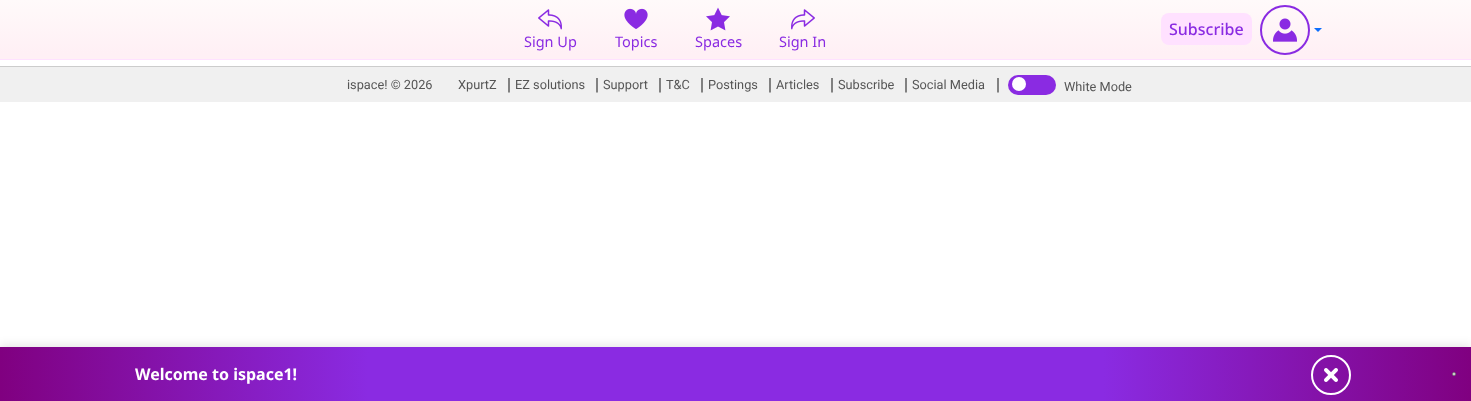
<!DOCTYPE html>
<meta charset="utf-8">
<style>body { margin: 0 } canvas { display: block }</style>
<canvas id="canvas" width="1471" height="401"></canvas>
<script type="module">
  const canvas = document.getElementById("canvas");
  const ctx = canvas.getContext("2d");
  ctx.miterLimit = 4;
  ctx.fontKerning = "normal";
  async function loadImage(src) {
    const img = new Image();
    img.src = src;
    await img.decode();
    return img;
  }
  let gradient;

  ctx.fillStyle = "#ffffff";
  ctx.fillRect(0, 0, 1471, 401);
  gradient = ctx.createLinearGradient(736, 0, 736, 59);
  gradient.addColorStop(0, "#fffafa");
  gradient.addColorStop(0.9, "#fff0f5");
  ctx.fillStyle = gradient;
  ctx.fillRect(0, 0, 1471, 59);
  ctx.fillStyle = "#ffe1ff";
  ctx.fillRect(0, 59, 1471, 1);
  ctx.beginPath();
  ctx.roundRect(1161, 13, 91, 32, 8);
  ctx.fill();
  ctx.font = "500 16px Noto Sans";
  ctx.fillStyle = "#8a2be2";
  ctx.fillText("Subscribe", 1169, 35);
  ctx.beginPath();
  ctx.arc(1285, 30, 24, 0, Math.PI * 2);
  ctx.strokeStyle = "#8a2be2";
  ctx.lineWidth = 2;
  ctx.stroke();
  ctx.drawImage(await loadImage("img1.png"), 1273, 18, 24, 24);
  ctx.fillStyle = "#0d6efd";
  ctx.beginPath();
  ctx.moveTo(1314, 28);
  ctx.lineTo(1322, 28);
  ctx.lineTo(1318, 32);
  ctx.closePath();
  ctx.fill();
  ctx.drawImage(await loadImage("img2.png"), 538, 9, 24, 21);
  ctx.font = "14.5px Noto Sans";
  ctx.fillStyle = "#8a2be2";
  ctx.fillText("Sign Up", 524, 47);
  ctx.drawImage(await loadImage("img3.png"), 624, 8, 24, 21);
  ctx.fillText("Topics", 615, 47);
  ctx.drawImage(await loadImage("img4.png"), 706, 7, 24, 24);
  ctx.fillText("Spaces", 695, 47);
  ctx.drawImage(await loadImage("img5.png"), 791, 9, 24, 21);
  ctx.fillText("Sign In", 779, 47);
  ctx.fillStyle = "#f0f0f0";
  ctx.fillRect(0, 67, 1471, 35);
  ctx.fillStyle = "#cccccc";
  ctx.fillRect(0, 66, 1471, 1);
  ctx.font = "12.75px Roboto";
  ctx.fillStyle = "#555555";
  ctx.fillText("ispace! © 2026", 347, 89);
  ctx.fillText("XpurtZ", 458, 89);
  ctx.font = "14.5px Noto Sans";
  ctx.fillStyle = "#1a1a1a";
  ctx.fillText("|", 505, 89);
  ctx.font = "12.75px Roboto";
  ctx.fillStyle = "#555555";
  ctx.fillText("EZ solutions", 515, 89);
  ctx.font = "14.5px Noto Sans";
  ctx.fillStyle = "#1a1a1a";
  ctx.fillText("|", 593, 89);
  ctx.font = "12.75px Roboto";
  ctx.fillStyle = "#555555";
  ctx.fillText("Support", 603, 89);
  ctx.font = "14.5px Noto Sans";
  ctx.fillStyle = "#1a1a1a";
  ctx.fillText("|", 656, 89);
  ctx.font = "12.75px Roboto";
  ctx.fillStyle = "#555555";
  ctx.fillText("T&C", 666, 89);
  ctx.font = "14.5px Noto Sans";
  ctx.fillStyle = "#1a1a1a";
  ctx.fillText("|", 698, 89);
  ctx.font = "12.75px Roboto";
  ctx.fillStyle = "#555555";
  ctx.fillText("Postings", 708, 89);
  ctx.font = "14.5px Noto Sans";
  ctx.fillStyle = "#1a1a1a";
  ctx.fillText("|", 766, 89);
  ctx.font = "12.75px Roboto";
  ctx.fillStyle = "#555555";
  ctx.fillText("Articles", 776, 89);
  ctx.font = "14.5px Noto Sans";
  ctx.fillStyle = "#1a1a1a";
  ctx.fillText("|", 828, 89);
  ctx.font = "12.75px Roboto";
  ctx.fillStyle = "#555555";
  ctx.fillText("Subscribe", 838, 89);
  ctx.font = "14.5px Noto Sans";
  ctx.fillStyle = "#1a1a1a";
  ctx.fillText("|", 902, 89);
  ctx.font = "12.75px Roboto";
  ctx.fillStyle = "#555555";
  ctx.fillText("Social Media", 912, 89);
  ctx.font = "14.5px Noto Sans";
  ctx.fillStyle = "#1a1a1a";
  ctx.fillText("|", 994, 89);
  ctx.fillStyle = "#8a2be2";
  ctx.beginPath();
  ctx.roundRect(1008, 75, 48, 20, 10);
  ctx.fill();
  ctx.fillStyle = "#ffffff";
  ctx.beginPath();
  ctx.arc(1019, 84, 7, 0, Math.PI * 2);
  ctx.fill();
  ctx.font = "12.75px Roboto";
  ctx.fillStyle = "#555555";
  ctx.fillText("White Mode", 1064, 91);
  ctx.fillStyle = "rgba(0, 0, 0, 0.1)";
  ctx.filter = "blur(5px)";
  ctx.beginPath();
  ctx.rect(0, 345, 1471, 54);
  ctx.fill();
  ctx.filter = "none";
  gradient = ctx.createRadialGradient(736, 374, 0, 736, 374, 736);
  gradient.addColorStop(0.5, "#8a2be2");
  gradient.addColorStop(1, "#800080");
  ctx.fillStyle = gradient;
  ctx.fillRect(0, 347, 1471, 54);
  ctx.font = "bold 16px Noto Sans";
  ctx.fillStyle = "#ffffff";
  ctx.fillText("Welcome to ispace1!", 135, 380);
  ctx.fillStyle = "#efefef";
  ctx.beginPath();
  ctx.arc(1454, 374, 1.5, 0, Math.PI * 2);
  ctx.fill();
  ctx.strokeStyle = "#767676";
  ctx.lineWidth = 1;
  ctx.stroke();
  ctx.beginPath();
  ctx.arc(1331, 375, 19, 0, Math.PI * 2);
  ctx.strokeStyle = "#ffffff";
  ctx.lineWidth = 2;
  ctx.stroke();
  ctx.drawImage(await loadImage("img6.png"), 1324, 368, 14, 14);
</script>
